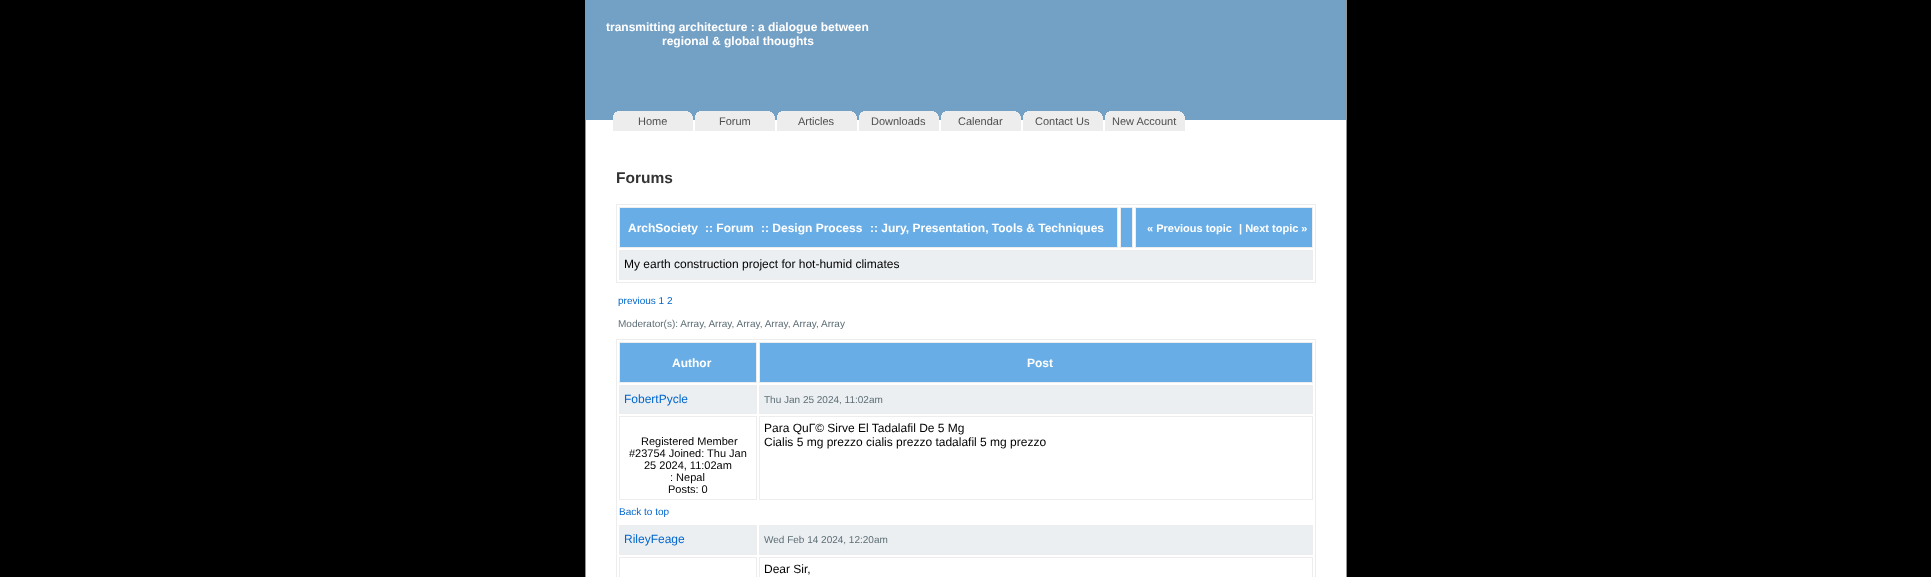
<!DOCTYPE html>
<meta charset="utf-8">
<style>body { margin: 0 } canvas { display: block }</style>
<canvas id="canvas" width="1931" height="577"></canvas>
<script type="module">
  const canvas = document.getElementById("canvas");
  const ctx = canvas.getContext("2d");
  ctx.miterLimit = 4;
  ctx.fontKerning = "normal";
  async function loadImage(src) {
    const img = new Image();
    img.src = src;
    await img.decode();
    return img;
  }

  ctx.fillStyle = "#000000";
  ctx.fillRect(0, 0, 1931, 577);
  ctx.fillStyle = "#ffffff";
  ctx.fillRect(586, 120, 760, 457);
  ctx.strokeStyle = "#959596";
  ctx.strokeRect(585.5, -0.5, 761, 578);
  ctx.fillStyle = "#73a0c5";
  ctx.fillRect(586, 0, 760, 120);
  ctx.font = "bold 12px Liberation Sans";
  ctx.fillStyle = "#ffffff";
  ctx.fillText("transmitting architecture : a dialogue between", 606, 31);
  ctx.fillText("regional & global thoughts", 662, 45);
  ctx.drawImage(await loadImage("img1.png"), 613, 111, 80, 20);
  ctx.font = "11px Liberation Sans";
  ctx.fillStyle = "#4e4e4e";
  ctx.fillText("Home", 638, 125);
  ctx.drawImage(await loadImage("img1.png"), 695, 111, 80, 20);
  ctx.fillText("Forum", 719, 125);
  ctx.drawImage(await loadImage("img1.png"), 777, 111, 80, 20);
  ctx.fillText("Articles", 798, 125);
  ctx.drawImage(await loadImage("img1.png"), 859, 111, 80, 20);
  ctx.fillText("Downloads", 871, 125);
  ctx.drawImage(await loadImage("img1.png"), 941, 111, 80, 20);
  ctx.fillText("Calendar", 958, 125);
  ctx.drawImage(await loadImage("img1.png"), 1023, 111, 80, 20);
  ctx.fillText("Contact Us", 1035, 125);
  ctx.drawImage(await loadImage("img1.png"), 1105, 111, 80, 20);
  ctx.fillText("New Account", 1112, 125);
  ctx.font = "bold 15.5px Liberation Sans";
  ctx.fillStyle = "#333333";
  ctx.fillText("Forums", 616, 183);
  ctx.strokeStyle = "#ededed";
  ctx.strokeRect(616.5, 204.5, 699, 78);
  ctx.fillStyle = "#68ade5";
  ctx.beginPath();
  ctx.rect(619.5, 207.5, 498, 40);
  ctx.fill();
  ctx.stroke();
  ctx.font = "bold 12px Liberation Sans";
  ctx.fillStyle = "#ffffff";
  ctx.fillText("ArchSociety", 628, 232);
  ctx.fillText(":: Forum", 705, 232);
  ctx.fillText(":: Design Process", 761, 232);
  ctx.fillText(":: Jury, Presentation, Tools & Techniques", 870, 232);
  ctx.fillStyle = "#68ade5";
  ctx.beginPath();
  ctx.rect(1120.5, 207.5, 12, 40);
  ctx.fill();
  ctx.stroke();
  ctx.beginPath();
  ctx.rect(1135.5, 207.5, 177, 40);
  ctx.fill();
  ctx.stroke();
  ctx.font = "bold 11px Liberation Sans";
  ctx.fillStyle = "#ffffff";
  ctx.fillText("« Previous topic", 1147, 232);
  ctx.fillText("| Next topic »", 1239, 232);
  ctx.fillStyle = "#ebeff2";
  ctx.beginPath();
  ctx.rect(619.5, 250.5, 693, 29);
  ctx.fill();
  ctx.stroke();
  ctx.font = "12px Liberation Sans";
  ctx.fillStyle = "#000000";
  ctx.fillText("My earth construction project for hot-humid climates", 624, 268);
  ctx.font = "10px Liberation Sans";
  ctx.fillStyle = "#0066cc";
  ctx.fillText("previous 1 2", 618, 304);
  ctx.fillStyle = "#5d6e75";
  ctx.fillText("Moderator(s): Array, Array, Array, Array, Array, Array", 618, 327);
  ctx.strokeRect(616.5, 339.5, 699, 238);
  ctx.fillStyle = "#68ade5";
  ctx.beginPath();
  ctx.rect(619.5, 342.5, 137, 40);
  ctx.fill();
  ctx.stroke();
  ctx.font = "bold 12px Liberation Sans";
  ctx.fillStyle = "#ffffff";
  ctx.fillText("Author", 672, 367);
  ctx.fillStyle = "#68ade5";
  ctx.beginPath();
  ctx.rect(759.5, 342.5, 553, 40);
  ctx.fill();
  ctx.stroke();
  ctx.fillStyle = "#ffffff";
  ctx.fillText("Post", 1027, 367);
  ctx.fillStyle = "#ebeff2";
  ctx.beginPath();
  ctx.rect(619.5, 385.5, 137, 28);
  ctx.fill();
  ctx.stroke();
  ctx.font = "12px Liberation Sans";
  ctx.fillStyle = "#0066cc";
  ctx.fillText("FobertPycle", 624, 403);
  ctx.fillStyle = "#ebeff2";
  ctx.beginPath();
  ctx.rect(759.5, 385.5, 553, 28);
  ctx.fill();
  ctx.stroke();
  ctx.font = "10px Liberation Sans";
  ctx.fillStyle = "#5d6e75";
  ctx.fillText("Thu Jan 25 2024, 11:02am", 764, 403);
  ctx.strokeRect(619.5, 416.5, 137, 83);
  ctx.font = "11px Liberation Sans";
  ctx.fillStyle = "#000000";
  ctx.fillText("Registered Member", 641, 445);
  ctx.fillText("#23754 Joined: Thu Jan", 629, 457);
  ctx.fillText("25 2024, 11:02am", 644, 469);
  ctx.fillText(": Nepal", 670, 481);
  ctx.fillText("Posts: 0", 668, 493);
  ctx.strokeRect(759.5, 416.5, 553, 83);
  ctx.font = "12px Liberation Sans";
  ctx.fillText("Para QuГ© Sirve El Tadalafil De 5 Mg", 764, 432);
  ctx.fillText("Cialis 5 mg prezzo cialis prezzo tadalafil 5 mg prezzo", 764, 446);
  ctx.font = "10px Liberation Sans";
  ctx.fillStyle = "#0066cc";
  ctx.fillText("Back to top", 619, 515);
  ctx.fillStyle = "#ebeff2";
  ctx.beginPath();
  ctx.rect(619.5, 525.5, 137, 29);
  ctx.fill();
  ctx.stroke();
  ctx.font = "12px Liberation Sans";
  ctx.fillStyle = "#0066cc";
  ctx.fillText("RileyFeage", 624, 543);
  ctx.fillStyle = "#ebeff2";
  ctx.beginPath();
  ctx.rect(759.5, 525.5, 553, 29);
  ctx.fill();
  ctx.stroke();
  ctx.font = "10px Liberation Sans";
  ctx.fillStyle = "#5d6e75";
  ctx.fillText("Wed Feb 14 2024, 12:20am", 764, 543);
  ctx.strokeRect(619.5, 557.5, 137, 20);
  ctx.strokeRect(759.5, 557.5, 553, 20);
  ctx.font = "12px Liberation Sans";
  ctx.fillStyle = "#000000";
  ctx.fillText("Dear Sir,", 764, 573);
</script>
